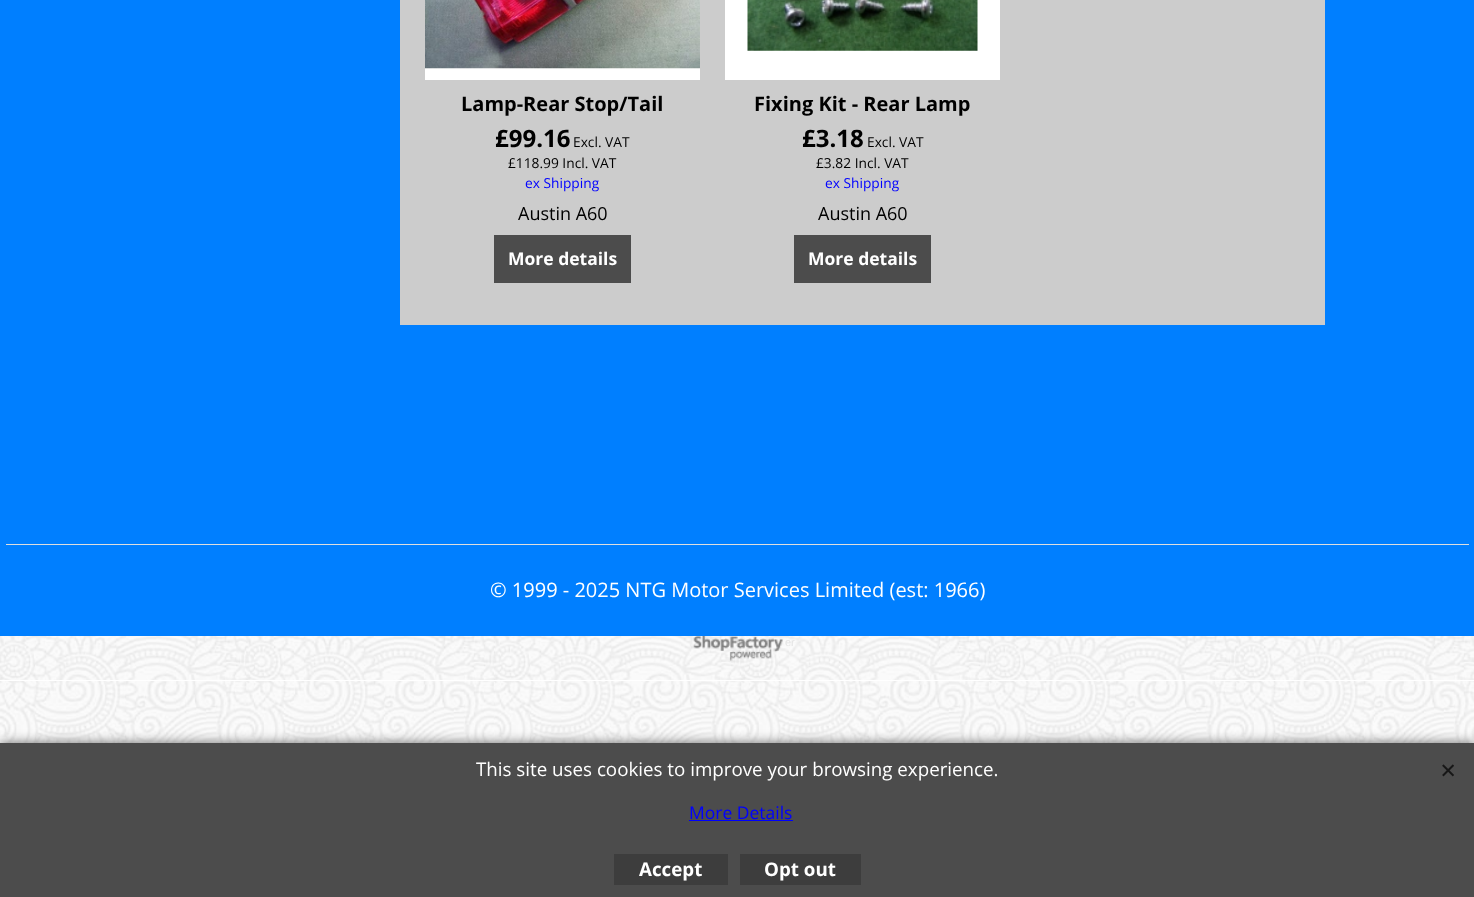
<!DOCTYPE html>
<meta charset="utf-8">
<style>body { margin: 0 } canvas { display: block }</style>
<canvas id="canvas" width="1474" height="897"></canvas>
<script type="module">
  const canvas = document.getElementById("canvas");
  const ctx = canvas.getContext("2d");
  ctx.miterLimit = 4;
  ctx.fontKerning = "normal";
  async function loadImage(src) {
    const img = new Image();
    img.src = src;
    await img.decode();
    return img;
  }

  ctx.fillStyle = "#ffffff";
  ctx.fillRect(0, 0, 1474, 897);
  ctx.drawImage(await loadImage("img1.png"), 0, 636, 1474, 107);
  ctx.fillStyle = "#007fff";
  ctx.fillRect(0, 0, 1474, 636);
  ctx.fillStyle = "#cccccc";
  ctx.fillRect(400, 0, 925, 325);
  ctx.fillStyle = "#ffffff";
  ctx.fillRect(425, 68, 275, 12);
  ctx.drawImage(await loadImage("img2.png"), 425, 0, 275, 69);
  ctx.font = "bold 20px Open Sans";
  ctx.fillStyle = "#000000";
  ctx.fillText("Lamp-Rear Stop/Tail", 461, 111);
  ctx.font = "bold 24px Open Sans";
  ctx.fillText("£99.16", 495, 147);
  ctx.font = "13.75px Open Sans";
  ctx.fillText("Excl. VAT", 573, 147);
  ctx.fillText("£118.99 Incl. VAT", 508, 168);
  ctx.fillStyle = "#0000ff";
  ctx.fillText("ex Shipping", 525, 188);
  ctx.font = "18px Open Sans";
  ctx.fillStyle = "#000000";
  ctx.fillText("Austin A60", 518, 220);
  ctx.fillStyle = "#4c4c4c";
  ctx.fillRect(494, 235, 137, 48);
  ctx.font = "bold 17.5px Open Sans";
  ctx.fillStyle = "#ffffff";
  ctx.fillText("More details", 508, 265);
  ctx.fillRect(725, 0, 275, 80);
  ctx.drawImage(await loadImage("img3.png"), 747, 0, 231, 51);
  ctx.font = "bold 20px Open Sans";
  ctx.fillStyle = "#000000";
  ctx.fillText("Fixing Kit - Rear Lamp", 754, 111);
  ctx.font = "bold 24px Open Sans";
  ctx.fillText("£3.18", 802, 147);
  ctx.font = "13.75px Open Sans";
  ctx.fillText("Excl. VAT", 867, 147);
  ctx.fillText("£3.82 Incl. VAT", 816, 168);
  ctx.fillStyle = "#0000ff";
  ctx.fillText("ex Shipping", 825, 188);
  ctx.font = "18px Open Sans";
  ctx.fillStyle = "#000000";
  ctx.fillText("Austin A60", 818, 220);
  ctx.fillStyle = "#4c4c4c";
  ctx.fillRect(794, 235, 137, 48);
  ctx.font = "bold 17.5px Open Sans";
  ctx.fillStyle = "#ffffff";
  ctx.fillText("More details", 808, 265);
  ctx.fillStyle = "#dedede";
  ctx.fillRect(6, 544, 1463, 1);
  ctx.font = "20px Open Sans";
  ctx.fillStyle = "#ffffff";
  ctx.fillText("© 1999 - 2025 NTG Motor Services Limited (est: 1966)", 490, 597);
  ctx.drawImage(await loadImage("img4.png"), 693, 636, 90, 25);
  ctx.font = "11px Liberation Sans";
  ctx.fillStyle = "#e4e4e4";
  ctx.fillText("er", 785, 646);
  ctx.fillStyle = "#ffffff";
  ctx.fillRect(0, 680, 1474, 1);
  ctx.fillStyle = "#666666";
  ctx.filter = "blur(6px)";
  ctx.beginPath();
  ctx.rect(0, 743, 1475, 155);
  ctx.fill();
  ctx.filter = "none";
  ctx.fillStyle = "#4c4c4c";
  ctx.fillRect(0, 743, 1474, 154);
  ctx.font = "18.75px Open Sans";
  ctx.fillStyle = "#ffffff";
  ctx.fillText("This site uses cookies to improve your browsing experience.", 476, 776);
  ctx.font = "17.5px Open Sans";
  ctx.fillStyle = "#0000ff";
  ctx.fillText("More Details", 689, 819);
  ctx.fillRect(689, 820, 104, 1);
  ctx.drawImage(await loadImage("img5.png"), 1442, 764, 12, 13);
  ctx.fillStyle = "#3d3d3d";
  ctx.fillRect(614, 854, 114, 31);
  ctx.font = "bold 18.75px Open Sans";
  ctx.fillStyle = "#ffffff";
  ctx.fillText("Accept", 639, 876);
  ctx.fillStyle = "#3d3d3d";
  ctx.fillRect(740, 854, 121, 31);
  ctx.fillStyle = "#ffffff";
  ctx.fillText("Opt out", 764, 876);
</script>
